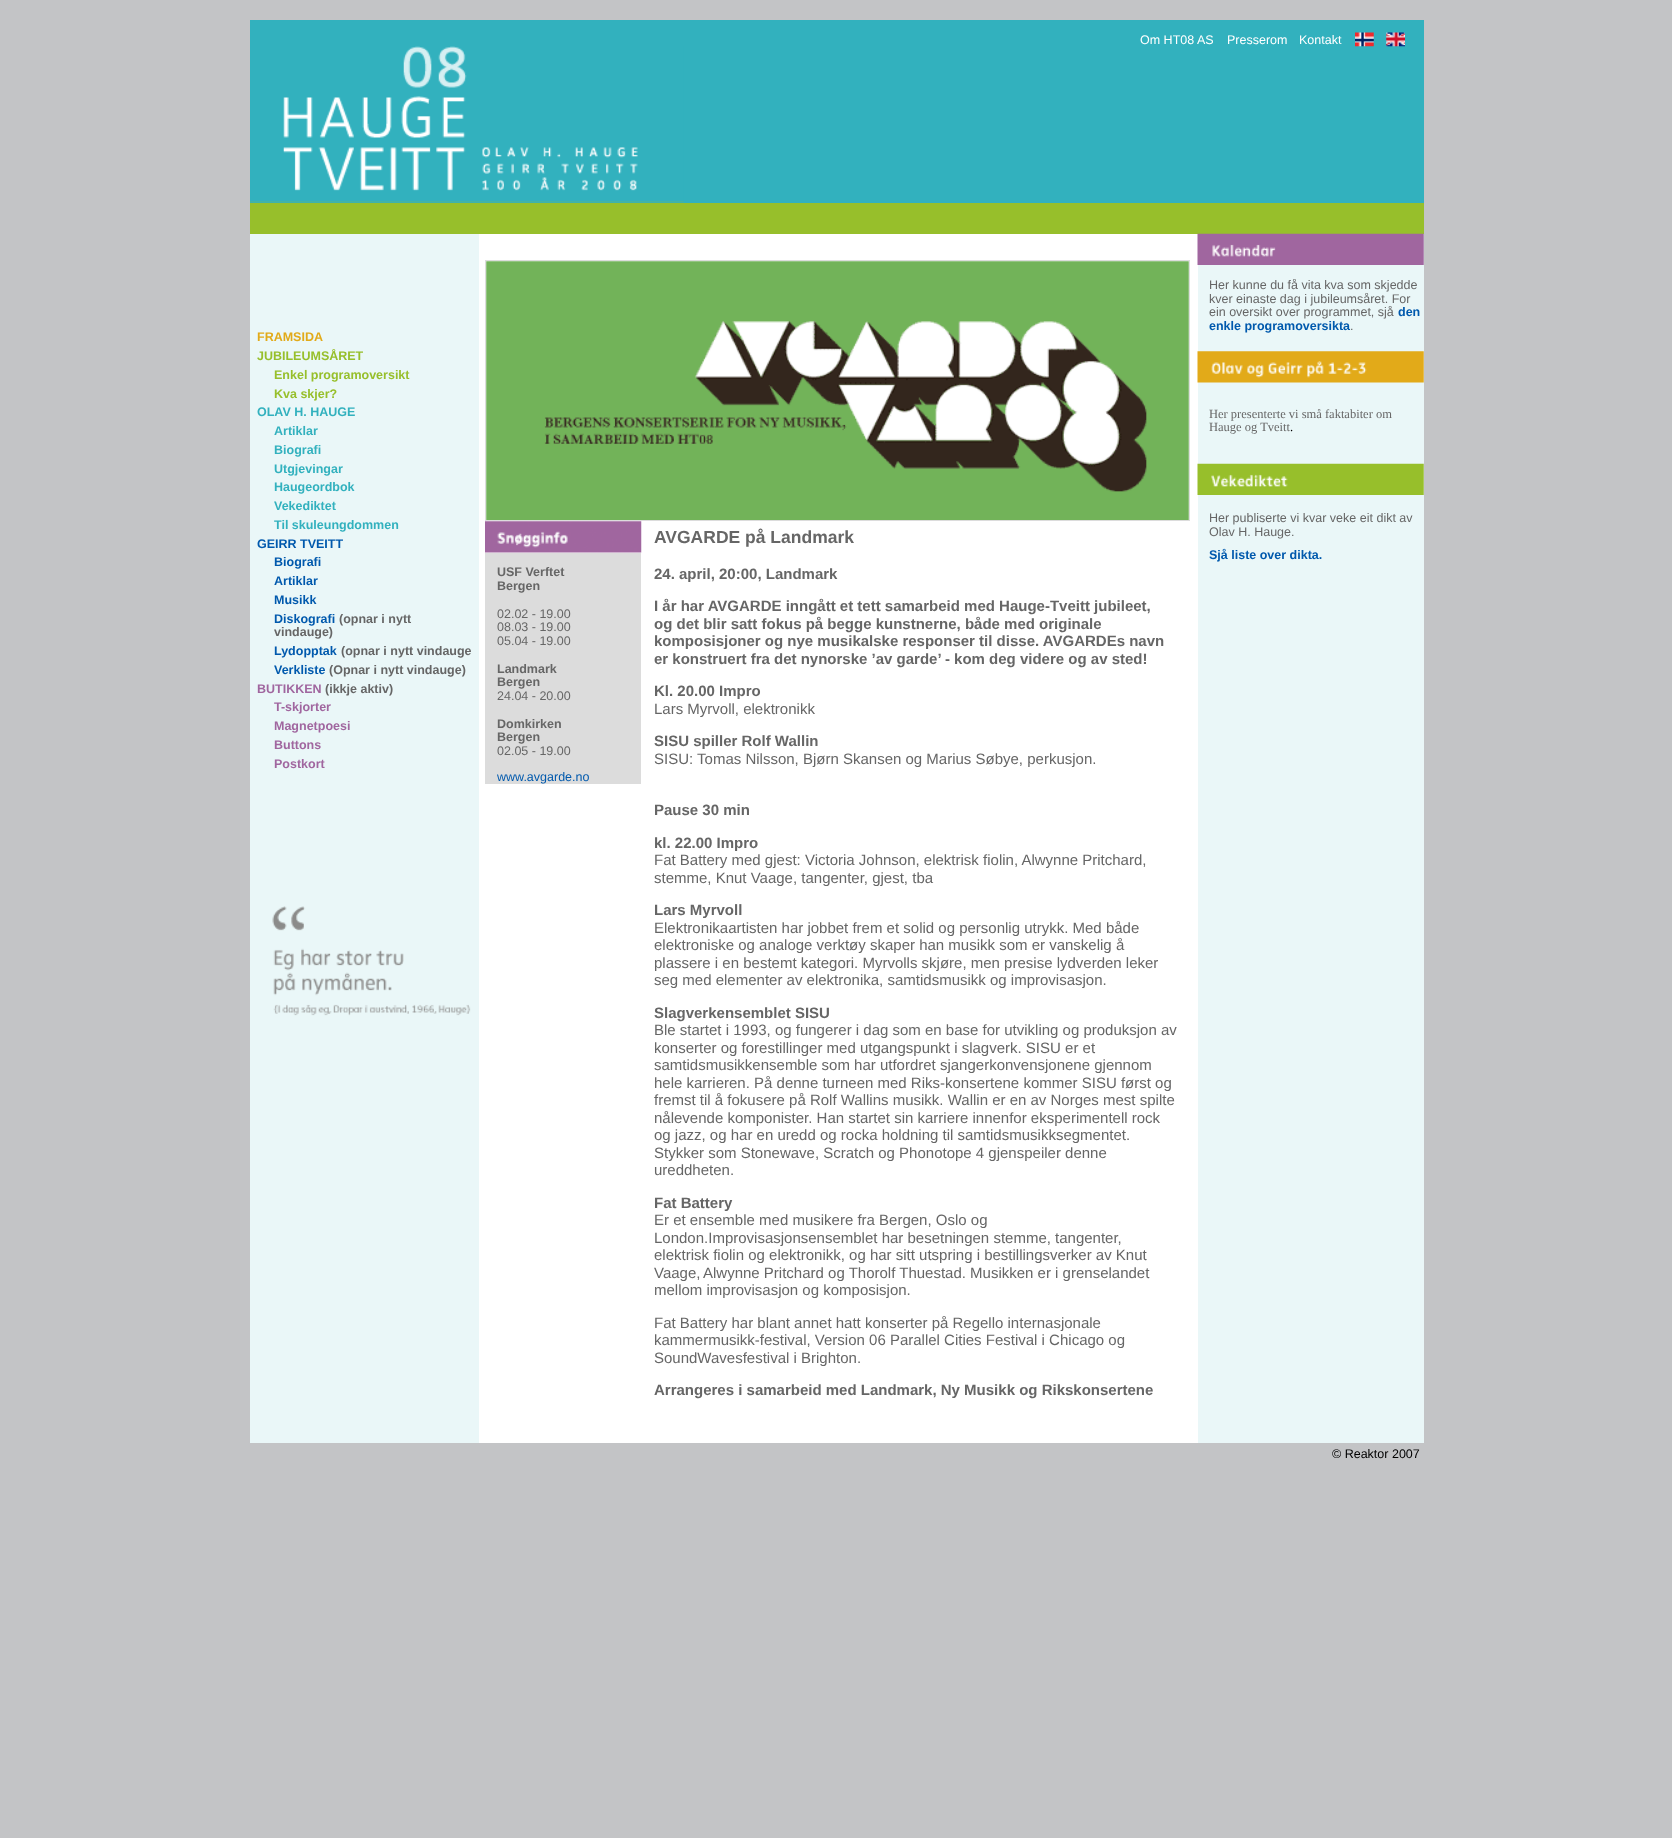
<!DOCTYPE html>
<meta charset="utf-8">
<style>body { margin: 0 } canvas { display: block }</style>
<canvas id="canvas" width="1672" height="1838"></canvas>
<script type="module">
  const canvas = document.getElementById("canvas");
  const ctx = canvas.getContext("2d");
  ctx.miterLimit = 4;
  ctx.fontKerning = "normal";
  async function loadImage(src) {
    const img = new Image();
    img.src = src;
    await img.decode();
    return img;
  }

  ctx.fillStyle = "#c3c4c6";
  ctx.fillRect(0, 0, 1672, 1838);
  ctx.fillStyle = "#32b1be";
  ctx.fillRect(250, 20, 1174, 183);
  ctx.font = "12.5px Liberation Sans";
  ctx.fillStyle = "#ffffff";
  ctx.fillText("Om HT08 AS", 1140, 44);
  ctx.fillText("Presserom", 1227, 44);
  ctx.fillText("Kontakt", 1299, 44);
  ctx.drawImage(await loadImage("img1.png"), 1355, 32, 19, 15);
  ctx.drawImage(await loadImage("img2.png"), 1386, 32, 19, 15);
  ctx.drawImage(await loadImage("img3.png"), 250, 46, 434, 157);
  ctx.fillStyle = "#97bf2b";
  ctx.fillRect(250, 203, 1174, 31);
  ctx.fillStyle = "#ffffff";
  ctx.fillRect(479, 234, 719, 1209);
  ctx.fillStyle = "#eaf7f8";
  ctx.fillRect(250, 234, 229, 1209);
  ctx.font = "bold 12.5px Liberation Sans";
  ctx.fillStyle = "#e2aa19";
  ctx.fillText("FRAMSIDA", 257, 341);
  ctx.fillStyle = "#97bf2b";
  ctx.fillText("JUBILEUMSÅRET", 257, 360);
  ctx.fillText("Enkel programoversikt", 274, 379);
  ctx.fillText("Kva skjer?", 274, 398);
  ctx.fillStyle = "#32b1be";
  ctx.fillText("OLAV H. HAUGE", 257, 416);
  ctx.fillText("Artiklar", 274, 435);
  ctx.fillText("Biografi", 274, 454);
  ctx.fillText("Utgjevingar", 274, 473);
  ctx.fillText("Haugeordbok", 274, 491);
  ctx.fillText("Vekediktet", 274, 510);
  ctx.fillText("Til skuleungdommen", 274, 529);
  ctx.fillStyle = "#0059ad";
  ctx.fillText("GEIRR TVEITT", 257, 548);
  ctx.fillText("Biografi", 274, 566);
  ctx.fillText("Artiklar", 274, 585);
  ctx.fillText("Musikk", 274, 604);
  ctx.fillText("Diskografi", 274, 623);
  ctx.fillStyle = "#666666";
  ctx.fillText("(opnar i nytt", 339, 623);
  ctx.fillText("vindauge)", 274, 636);
  ctx.fillStyle = "#0059ad";
  ctx.fillText("Lydopptak", 274, 655);
  ctx.fillStyle = "#666666";
  ctx.fillText("(opnar i nytt vindauge", 341, 655);
  ctx.fillStyle = "#0059ad";
  ctx.fillText("Verkliste", 274, 674);
  ctx.fillStyle = "#666666";
  ctx.fillText("(Opnar i nytt vindauge)", 329, 674);
  ctx.fillStyle = "#a0669f";
  ctx.fillText("BUTIKKEN", 257, 693);
  ctx.fillStyle = "#666666";
  ctx.fillText("(ikkje aktiv)", 325, 693);
  ctx.fillStyle = "#a0669f";
  ctx.fillText("T-skjorter", 274, 711);
  ctx.fillText("Magnetpoesi", 274, 730);
  ctx.fillText("Buttons", 274, 749);
  ctx.fillText("Postkort", 274, 768);
  ctx.drawImage(await loadImage("img4.png"), 272, 906, 199, 110);
  ctx.strokeStyle = "#dcdcdc";
  ctx.strokeRect(485.5, 260.5, 704, 260);
  ctx.drawImage(await loadImage("img5.png"), 486, 261, 703, 259);
  ctx.drawImage(await loadImage("img6.png"), 485, 521, 157, 32);
  ctx.font = "bold 17.5px Liberation Sans";
  ctx.fillStyle = "#666666";
  ctx.fillText("AVGARDE på Landmark", 654, 543);
  ctx.fillStyle = "#dcdcdc";
  ctx.fillRect(485, 553, 156, 12);
  ctx.fillRect(485, 565, 156, 219);
  ctx.font = "bold 12.5px Liberation Sans";
  ctx.fillStyle = "#666666";
  ctx.fillText("USF Verftet", 497, 576);
  ctx.fillText("Bergen", 497, 590);
  ctx.font = "12.5px Liberation Sans";
  ctx.fillText("02.02 - 19.00", 497, 618);
  ctx.fillText("08.03 - 19.00", 497, 631);
  ctx.fillText("05.04 - 19.00", 497, 645);
  ctx.font = "bold 12.5px Liberation Sans";
  ctx.fillText("Landmark", 497, 673);
  ctx.fillText("Bergen", 497, 686);
  ctx.font = "12.5px Liberation Sans";
  ctx.fillText("24.04 - 20.00", 497, 700);
  ctx.font = "bold 12.5px Liberation Sans";
  ctx.fillText("Domkirken", 497, 728);
  ctx.fillText("Bergen", 497, 741);
  ctx.font = "12.5px Liberation Sans";
  ctx.fillText("02.05 - 19.00", 497, 755);
  ctx.fillStyle = "#0059ad";
  ctx.fillText("www.avgarde.no", 497, 781);
  ctx.font = "bold 15px Liberation Sans";
  ctx.fillStyle = "#666666";
  ctx.fillText("24. april, 20:00, Landmark", 654, 579);
  ctx.fillText("I år har AVGARDE inngått et tett samarbeid med Hauge-Tveitt jubileet,", 654, 611);
  ctx.fillText("og det blir satt fokus på begge kunstnerne, både med originale", 654, 629);
  ctx.fillText("komposisjoner og nye musikalske responser til disse. AVGARDEs navn", 654, 646);
  ctx.fillText("er konstruert fra det nynorske ’av garde’ - kom deg videre og av sted!", 654, 664);
  ctx.fillText("Kl. 20.00 Impro", 654, 696);
  ctx.font = "15px Liberation Sans";
  ctx.fillText("Lars Myrvoll, elektronikk", 654, 714);
  ctx.font = "bold 15px Liberation Sans";
  ctx.fillText("SISU spiller Rolf Wallin", 654, 746);
  ctx.font = "15px Liberation Sans";
  ctx.fillText("SISU: Tomas Nilsson, Bjørn Skansen og Marius Søbye, perkusjon.", 654, 764);
  ctx.font = "bold 15px Liberation Sans";
  ctx.fillText("Pause 30 min", 654, 815);
  ctx.fillText("kl. 22.00 Impro", 654, 848);
  ctx.font = "15px Liberation Sans";
  ctx.fillText("Fat Battery med gjest: Victoria Johnson, elektrisk fiolin, Alwynne Pritchard,", 654, 865);
  ctx.fillText("stemme, Knut Vaage, tangenter, gjest, tba", 654, 883);
  ctx.font = "bold 15px Liberation Sans";
  ctx.fillText("Lars Myrvoll", 654, 915);
  ctx.font = "15px Liberation Sans";
  ctx.fillText("Elektronikaartisten har jobbet frem et solid og personlig utrykk. Med både", 654, 933);
  ctx.fillText("elektroniske og analoge verktøy skaper han musikk som er vanskelig å", 654, 950);
  ctx.fillText("plassere i en bestemt kategori. Myrvolls skjøre, men presise lydverden leker", 654, 968);
  ctx.fillText("seg med elementer av elektronika, samtidsmusikk og improvisasjon.", 654, 985);
  ctx.font = "bold 15px Liberation Sans";
  ctx.fillText("Slagverkensemblet SISU", 654, 1018);
  ctx.font = "15px Liberation Sans";
  ctx.fillText("Ble startet i 1993, og fungerer i dag som en base for utvikling og produksjon av", 654, 1035);
  ctx.fillText("konserter og forestillinger med utgangspunkt i slagverk. SISU er et", 654, 1053);
  ctx.fillText("samtidsmusikkensemble som har utfordret sjangerkonvensjonene gjennom", 654, 1070);
  ctx.fillText("hele karrieren. På denne turneen med Riks-konsertene kommer SISU først og", 654, 1088);
  ctx.fillText("fremst til å fokusere på Rolf Wallins musikk. Wallin er en av Norges mest spilte", 654, 1105);
  ctx.fillText("nålevende komponister. Han startet sin karriere innenfor eksperimentell rock", 654, 1123);
  ctx.fillText("og jazz, og har en uredd og rocka holdning til samtidsmusikksegmentet.", 654, 1140);
  ctx.fillText("Stykker som Stonewave, Scratch og Phonotope 4 gjenspeiler denne", 654, 1158);
  ctx.fillText("ureddheten.", 654, 1175);
  ctx.font = "bold 15px Liberation Sans";
  ctx.fillText("Fat Battery", 654, 1208);
  ctx.font = "15px Liberation Sans";
  ctx.fillText("Er et ensemble med musikere fra Bergen, Oslo og", 654, 1225);
  ctx.fillText("London.Improvisasjonsensemblet har besetningen stemme, tangenter,", 654, 1243);
  ctx.fillText("elektrisk fiolin og elektronikk, og har sitt utspring i bestillingsverker av Knut", 654, 1260);
  ctx.fillText("Vaage,", 654, 1278);
  ctx.fillText("Alwynne Pritchard og Thorolf Thuestad. Musikken er i grenselandet", 703, 1278);
  ctx.fillText("mellom improvisasjon og komposisjon.", 654, 1295);
  ctx.fillText("Fat Battery har blant annet hatt konserter på Regello internasjonale", 654, 1328);
  ctx.fillText("kammermusikk-festival, Version 06 Parallel Cities Festival i Chicago og", 654, 1345);
  ctx.fillText("SoundWavesfestival i Brighton.", 654, 1363);
  ctx.font = "bold 15px Liberation Sans";
  ctx.fillText("Arrangeres i samarbeid med Landmark, Ny Musikk og Rikskonsertene", 654, 1395);
  ctx.fillStyle = "#eaf7f8";
  ctx.fillRect(1198, 234, 226, 1209);
  ctx.drawImage(await loadImage("img7.png"), 1197, 233, 227, 32);
  ctx.font = "12.5px Liberation Sans";
  ctx.fillStyle = "#666666";
  ctx.fillText("Her kunne du få vita kva som skjedde", 1209, 289);
  ctx.fillText("kver einaste dag i jubileumsåret. For", 1209, 303);
  ctx.fillText("ein oversikt over programmet, sjå", 1209, 316);
  ctx.font = "bold 12.5px Liberation Sans";
  ctx.fillStyle = "#0059ad";
  ctx.fillText("den", 1398, 316);
  ctx.fillText("enkle programoversikta", 1209, 330);
  ctx.font = "12.5px Liberation Sans";
  ctx.fillStyle = "#666666";
  ctx.fillText(".", 1350, 330);
  ctx.drawImage(await loadImage("img8.png"), 1197, 351, 227, 32);
  ctx.font = "12.5px Liberation Serif";
  ctx.fillText("Her presenterte vi små faktabiter om", 1209, 418);
  ctx.fillText("Hauge og Tveitt", 1209, 431);
  ctx.fillStyle = "#000000";
  ctx.fillText(".", 1290, 431);
  ctx.drawImage(await loadImage("img9.png"), 1197, 463, 227, 32);
  ctx.font = "12.5px Liberation Sans";
  ctx.fillStyle = "#666666";
  ctx.fillText("Her publiserte vi kvar veke eit dikt av", 1209, 522);
  ctx.fillText("Olav H. Hauge.", 1209, 536);
  ctx.font = "bold 12.5px Liberation Sans";
  ctx.fillStyle = "#0059ad";
  ctx.fillText("Sjå liste over dikta.", 1209, 559);
  ctx.font = "12.5px Liberation Sans";
  ctx.fillStyle = "#000000";
  ctx.fillText("© Reaktor 2007", 1332, 1458);
</script>
